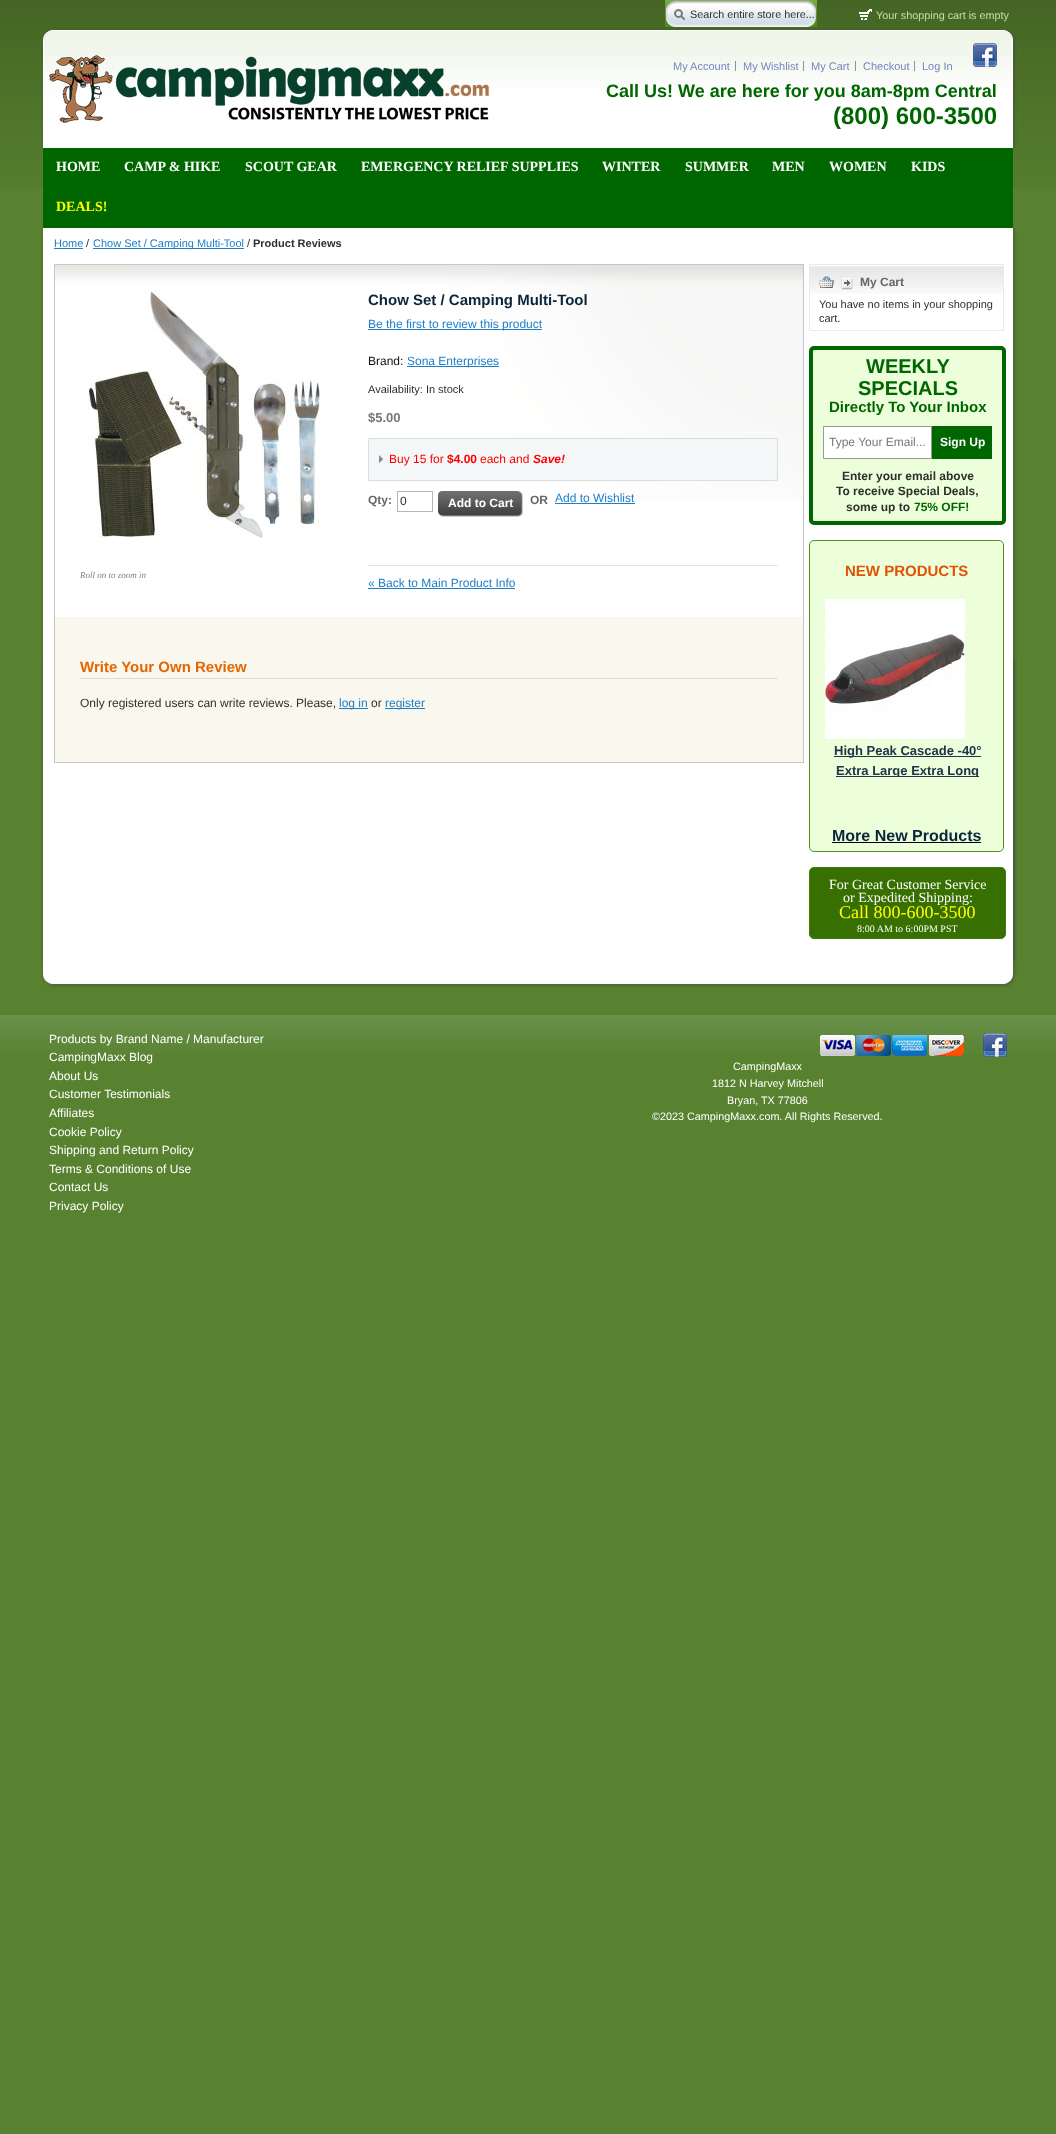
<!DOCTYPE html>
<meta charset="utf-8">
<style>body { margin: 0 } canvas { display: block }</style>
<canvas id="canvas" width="1056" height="2134"></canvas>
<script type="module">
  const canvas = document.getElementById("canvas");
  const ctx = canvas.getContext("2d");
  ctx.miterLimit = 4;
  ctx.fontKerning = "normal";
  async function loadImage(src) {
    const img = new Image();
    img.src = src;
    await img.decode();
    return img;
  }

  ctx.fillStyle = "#58822f";
  ctx.fillRect(0, 0, 1056, 2134);
  ctx.drawImage(await loadImage("img1.png"), 0, 0, 1056, 189);
  ctx.drawImage(await loadImage("img2.png"), 41, 29, 976, 119);
  ctx.drawImage(await loadImage("img3.png"), 690, 0, 127, 27);
  ctx.drawImage(await loadImage("img4.png"), 665, 0, 25, 27);
  ctx.font = "10.8px Liberation Sans";
  ctx.fillStyle = "#2f2f2f";
  ctx.fillText("Search entire store here...", 690, 18);
  ctx.drawImage(await loadImage("img5.png"), 859, 9, 13, 11);
  ctx.fillStyle = "#c1e2a0";
  ctx.fillText("Your shopping cart is empty", 876, 19);
  ctx.drawImage(await loadImage("img6.png"), 49, 55, 440, 68);
  ctx.font = "11px Liberation Sans";
  ctx.fillStyle = "#7386be";
  ctx.fillText("My Account", 673, 70);
  ctx.fillStyle = "#929292";
  ctx.fillRect(735, 61, 1, 10);
  ctx.fillStyle = "#7386be";
  ctx.fillText("My Wishlist", 743, 70);
  ctx.fillStyle = "#929292";
  ctx.fillRect(803, 61, 1, 10);
  ctx.fillStyle = "#7386be";
  ctx.fillText("My Cart", 811, 70);
  ctx.fillStyle = "#929292";
  ctx.fillRect(855, 61, 1, 10);
  ctx.fillStyle = "#7386be";
  ctx.fillText("Checkout", 863, 70);
  ctx.fillStyle = "#929292";
  ctx.fillRect(914, 61, 1, 10);
  ctx.fillStyle = "#7386be";
  ctx.fillText("Log In", 922, 70);
  ctx.drawImage(await loadImage("img7.png"), 973, 43, 24, 24);
  ctx.font = "bold 18px Liberation Sans";
  ctx.fillStyle = "#006600";
  ctx.fillText("Call Us! We are here for you 8am-8pm Central", 606, 97);
  ctx.font = "bold 24px Liberation Sans";
  ctx.fillText("(800) 600-3500", 833, 124);
  ctx.fillRect(43, 148, 970, 80);
  ctx.font = "bold 14px Liberation Serif";
  ctx.fillStyle = "#ffffff";
  ctx.fillText("HOME", 56, 171);
  ctx.fillText("CAMP & HIKE", 124, 171);
  ctx.fillText("SCOUT GEAR", 245, 171);
  ctx.fillText("EMERGENCY RELIEF SUPPLIES", 361, 171);
  ctx.fillText("WINTER", 602, 171);
  ctx.fillText("SUMMER", 685, 171);
  ctx.fillText("MEN", 772, 171);
  ctx.fillText("WOMEN", 829, 171);
  ctx.fillText("KIDS", 911, 171);
  ctx.fillStyle = "#ffff00";
  ctx.fillText("DEALS!", 56, 211);
  ctx.drawImage(await loadImage("img8.png"), 41, 654, 976, 334);
  ctx.drawImage(await loadImage("img9.png"), 41, 228, 976, 732);
  ctx.font = "11px Liberation Sans";
  ctx.fillStyle = "#1e7ec8";
  ctx.fillText("Home", 54, 247);
  ctx.fillRect(54, 248, 29, 1);
  ctx.fillStyle = "#2f2f2f";
  ctx.fillText("/", 86, 247);
  ctx.fillStyle = "#1e7ec8";
  ctx.fillRect(93, 248, 151, 1);
  ctx.fillText("Chow Set / Camping Multi-Tool", 93, 247);
  ctx.fillStyle = "#2f2f2f";
  ctx.fillText("/", 247, 247);
  ctx.font = "bold 11px Liberation Sans";
  ctx.fillText("Product Reviews", 253, 247);
  ctx.strokeStyle = "#c4c6c8";
  ctx.strokeRect(54.5, 264.5, 749, 498);
  ctx.drawImage(await loadImage("img10.png"), 55, 265, 748, 236);
  ctx.drawImage(await loadImage("img11.png"), 88, 290, 232, 249);
  ctx.font = "italic 9px Liberation Serif";
  ctx.fillStyle = "#808080";
  ctx.fillText("Roll on to zoom in", 80, 578);
  ctx.font = "bold 15px Liberation Sans";
  ctx.fillStyle = "#0a263c";
  ctx.fillText("Chow Set / Camping Multi-Tool", 368, 305);
  ctx.fillStyle = "#1e7ec8";
  ctx.fillRect(368, 329, 174, 1);
  ctx.font = "12px Liberation Sans";
  ctx.fillText("Be the first to review this product", 368, 328);
  ctx.fillStyle = "#111111";
  ctx.fillText("Brand:", 368, 365);
  ctx.fillStyle = "#1e7ec8";
  ctx.fillRect(407, 366, 92, 1);
  ctx.fillText("Sona Enterprises", 407, 365);
  ctx.font = "11px Liberation Sans";
  ctx.fillStyle = "#2f2f2f";
  ctx.fillText("Availability: In stock", 368, 393);
  ctx.font = "bold 13px Liberation Sans";
  ctx.fillStyle = "#777777";
  ctx.fillText("$5.00", 368, 422);
  ctx.fillStyle = "#f4f7f7";
  ctx.beginPath();
  ctx.rect(368.5, 438.5, 409, 42);
  ctx.fill();
  ctx.strokeStyle = "#dadddd";
  ctx.stroke();
  ctx.drawImage(await loadImage("img12.png"), 379, 455, 4, 9);
  ctx.font = "12px Liberation Sans";
  ctx.fillStyle = "#ff0000";
  ctx.fillText("Buy 15 for", 389, 463);
  ctx.font = "bold 12px Liberation Sans";
  ctx.fillText("$4.00", 447, 463);
  ctx.font = "12px Liberation Sans";
  ctx.fillText("each and", 480, 463);
  ctx.font = "italic bold 12px Liberation Sans";
  ctx.fillText("Save!", 533, 463);
  ctx.font = "bold 12px Liberation Sans";
  ctx.fillStyle = "#666666";
  ctx.fillText("Qty:", 368, 504);
  ctx.strokeStyle = "#b6b6b6";
  ctx.strokeRect(397.5, 491.5, 35, 20);
  ctx.font = "12px Liberation Sans";
  ctx.fillStyle = "#2f2f2f";
  ctx.fillText("0", 400, 505);
  ctx.drawImage(await loadImage("img13.png"), 495, 491, 28, 26);
  ctx.drawImage(await loadImage("img14.png"), 438, 491, 57, 26);
  ctx.font = "bold 12px Liberation Sans";
  ctx.fillStyle = "#ffffff";
  ctx.fillText("Add to Cart", 448, 507);
  ctx.fillStyle = "#666666";
  ctx.fillText("OR", 530, 504);
  ctx.font = "12px Liberation Sans";
  ctx.fillStyle = "#1e7ec8";
  ctx.fillText("Add to Wishlist", 555, 502);
  ctx.fillRect(555, 503, 80, 1);
  ctx.fillStyle = "#e4e4e4";
  ctx.fillRect(368, 565, 410, 1);
  ctx.fillStyle = "#1e7ec8";
  ctx.fillText("« Back to Main Product Info", 368, 587);
  ctx.fillRect(368, 588, 147, 1);
  ctx.fillStyle = "#faf7ee";
  ctx.fillRect(55, 617, 748, 145);
  ctx.fillStyle = "#e5dcc3";
  ctx.fillRect(80, 678, 698, 1);
  ctx.font = "bold 15px Liberation Sans";
  ctx.fillStyle = "#e26703";
  ctx.fillText("Write Your Own Review", 80, 672);
  ctx.font = "12px Liberation Sans";
  ctx.fillStyle = "#2f2f2f";
  ctx.fillText("Only registered users can write reviews. Please,", 80, 707);
  ctx.fillStyle = "#1e7ec8";
  ctx.fillRect(339, 708, 29, 1);
  ctx.fillText("log in", 339, 707);
  ctx.fillStyle = "#2f2f2f";
  ctx.fillText("or", 371, 707);
  ctx.fillStyle = "#1e7ec8";
  ctx.fillRect(385, 708, 40, 1);
  ctx.fillText("register", 385, 707);
  ctx.drawImage(await loadImage("img15.png"), 810, 266, 193, 28);
  ctx.strokeStyle = "#eaeaea";
  ctx.strokeRect(809.5, 264.5, 194, 66);
  ctx.drawImage(await loadImage("img16.png"), 818, 275, 16, 14);
  ctx.drawImage(await loadImage("img17.png"), 841, 278, 12, 12);
  ctx.font = "bold 12px Liberation Sans";
  ctx.fillStyle = "#666666";
  ctx.fillText("My Cart", 860, 286);
  ctx.font = "11px Liberation Sans";
  ctx.fillStyle = "#2f2f2f";
  ctx.fillText("You have no items in your shopping", 819, 308);
  ctx.fillText("cart.", 819, 322);
  ctx.fillStyle = "#ecffda";
  ctx.beginPath();
  ctx.roundRect(811, 348, 193, 175, 3);
  ctx.fill();
  ctx.strokeStyle = "#006600";
  ctx.lineWidth = 4;
  ctx.stroke();
  ctx.font = "bold 20px Liberation Sans";
  ctx.fillStyle = "#006600";
  ctx.fillText("WEEKLY", 866, 373);
  ctx.fillText("SPECIALS", 858, 395);
  ctx.font = "bold 15px Liberation Sans";
  ctx.fillText("Directly To Your Inbox", 829, 412);
  ctx.fillStyle = "#ffffff";
  ctx.beginPath();
  ctx.rect(823.5, 426.5, 108, 32);
  ctx.fill();
  ctx.strokeStyle = "#999999";
  ctx.lineWidth = 1;
  ctx.stroke();
  ctx.font = "12px Liberation Sans";
  ctx.fillStyle = "#777777";
  ctx.fillText("Type Your Email...", 829, 446);
  ctx.fillStyle = "#006600";
  ctx.fillRect(932, 426, 60, 33);
  ctx.font = "bold 12px Liberation Sans";
  ctx.fillStyle = "#ffffff";
  ctx.fillText("Sign Up", 940, 446);
  ctx.fillStyle = "#2f2f2f";
  ctx.fillText("Enter your email above", 842, 480);
  ctx.fillText("To receive Special Deals,", 836, 495);
  ctx.fillText("some up to", 846, 511);
  ctx.fillStyle = "#006600";
  ctx.fillText("75% OFF!", 914, 511);
  ctx.fillStyle = "#ecffda";
  ctx.beginPath();
  ctx.roundRect(809.5, 540.5, 194, 311, 4.5);
  ctx.fill();
  ctx.strokeStyle = "#538e1a";
  ctx.stroke();
  ctx.font = "bold 15px Liberation Sans";
  ctx.fillStyle = "#e25203";
  ctx.fillText("NEW PRODUCTS", 845, 576);
  ctx.drawImage(await loadImage("img18.png"), 825, 599, 140, 140);
  ctx.fillStyle = "#203548";
  ctx.fillRect(834, 756, 147, 1);
  ctx.font = "bold 13px Liberation Sans";
  ctx.fillText("High Peak Cascade -40°", 834, 755);
  ctx.fillRect(836, 776, 143, 1);
  ctx.save();
  ctx.beginPath();
  ctx.rect(815, 587, 185, 190);
  ctx.clip();
  ctx.fillText("Extra Large Extra Long", 836, 775);
  ctx.restore();
  ctx.font = "bold 16px Liberation Sans";
  ctx.fillStyle = "#0a263c";
  ctx.fillText("More New Products", 832, 841);
  ctx.fillStyle = "#000000";
  ctx.fillRect(832, 842, 149, 1);
  ctx.fillStyle = "#376f00";
  ctx.beginPath();
  ctx.roundRect(809.5, 867.5, 196, 71, 4.5);
  ctx.fill();
  ctx.strokeStyle = "#407d0a";
  ctx.stroke();
  ctx.font = "14px Liberation Serif";
  ctx.fillStyle = "#ffffff";
  ctx.fillText("For Great Customer Service", 829, 889);
  ctx.fillText("or Expedited Shipping:", 843, 902);
  ctx.font = "18px Liberation Serif";
  ctx.fillStyle = "#ffff00";
  ctx.fillText("Call 800-600-3500", 839, 918);
  ctx.font = "10px Liberation Serif";
  ctx.fillStyle = "#ffffff";
  ctx.fillText("8:00 AM to 6:00PM PST", 857, 932);
  ctx.drawImage(await loadImage("img19.png"), 0, 1015, 1056, 39);
  ctx.font = "12px Liberation Sans";
  ctx.fillText("Products by Brand Name / Manufacturer", 49, 1043);
  ctx.fillText("CampingMaxx Blog", 49, 1061);
  ctx.fillText("About Us", 49, 1080);
  ctx.fillText("Customer Testimonials", 49, 1098);
  ctx.fillText("Affiliates", 49, 1117);
  ctx.fillText("Cookie Policy", 49, 1136);
  ctx.fillText("Shipping and Return Policy", 49, 1154);
  ctx.fillText("Terms & Conditions of Use", 49, 1173);
  ctx.fillText("Contact Us", 49, 1191);
  ctx.fillText("Privacy Policy", 49, 1210);
  ctx.font = "10.8px Liberation Sans";
  ctx.fillText("CampingMaxx", 733, 1070);
  ctx.fillText("1812 N Harvey Mitchell", 712, 1087);
  ctx.fillText("Bryan, TX 77806", 727, 1104);
  ctx.fillText("©2023 CampingMaxx.com. All Rights Reserved.", 652, 1120);
  ctx.drawImage(await loadImage("img20.png"), 820, 1035, 144, 21);
  ctx.drawImage(await loadImage("img21.png"), 983, 1033, 24, 24);
</script>
